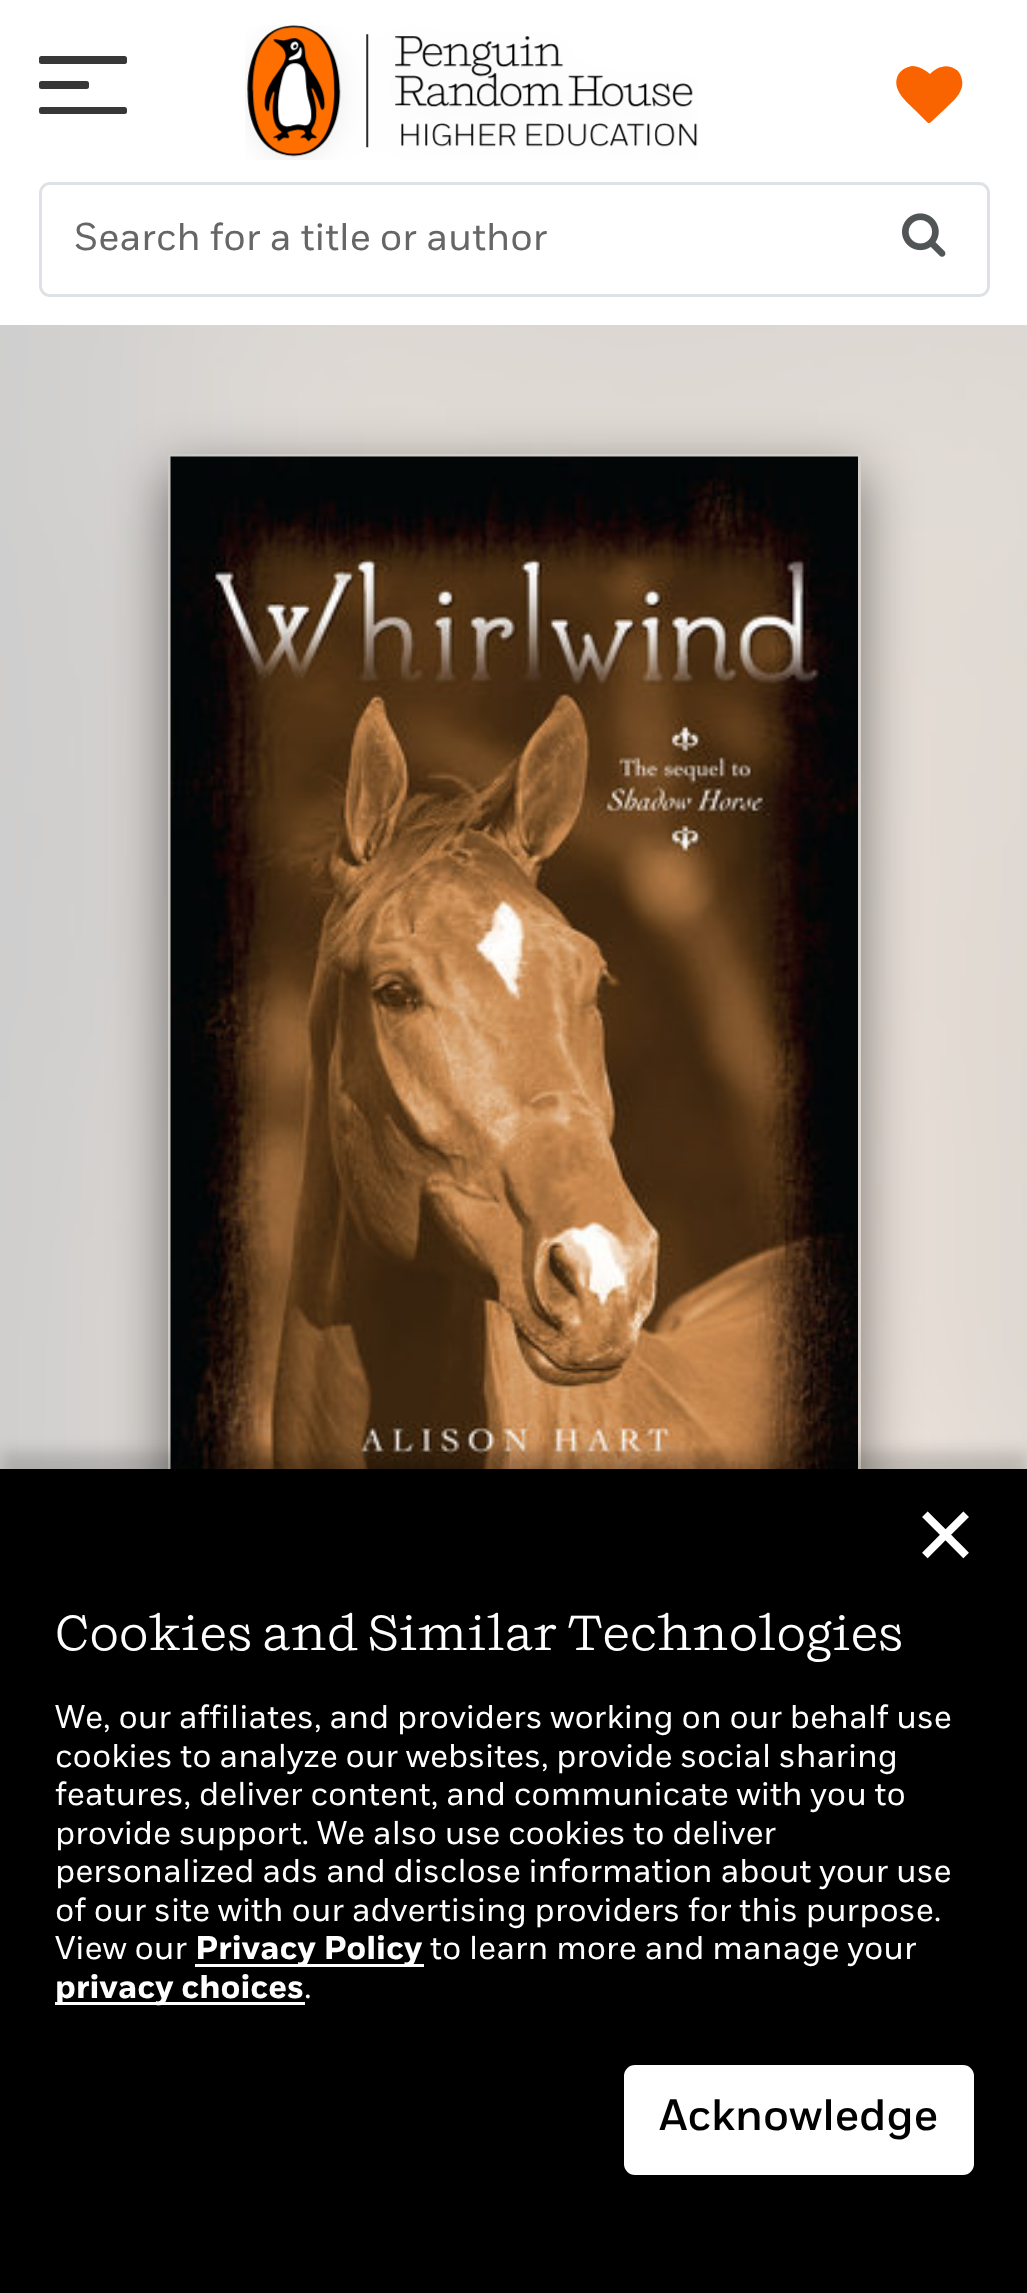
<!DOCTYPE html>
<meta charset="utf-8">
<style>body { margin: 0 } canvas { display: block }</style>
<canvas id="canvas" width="1027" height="2293"></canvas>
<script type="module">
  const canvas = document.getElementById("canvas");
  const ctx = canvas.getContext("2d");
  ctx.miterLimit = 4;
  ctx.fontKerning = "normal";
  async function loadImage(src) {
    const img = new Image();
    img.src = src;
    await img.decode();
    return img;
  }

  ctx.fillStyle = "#ffffff";
  ctx.fillRect(0, 0, 1027, 2293);
  ctx.fillStyle = "#373737";
  ctx.beginPath();
  ctx.roundRect(39, 107, 88, 7, 2.5);
  ctx.fill();
  ctx.beginPath();
  ctx.roundRect(39, 81, 50, 8, 2.5);
  ctx.fill();
  ctx.beginPath();
  ctx.roundRect(39, 56, 88, 8, 2.5);
  ctx.fill();
  ctx.drawImage(await loadImage("img1.png"), 245, 25, 453, 135);
  ctx.fillStyle = "#fa6400";
  ctx.beginPath();
  ctx.moveTo(931, 122);
  ctx.bezierCurveTo(930, 123, 929, 123, 928, 123);
  ctx.lineTo(916, 111);
  ctx.bezierCurveTo(907, 102, 891, 90, 898, 75);
  ctx.bezierCurveTo(901, 70, 906, 67, 912, 66);
  ctx.bezierCurveTo(919, 66, 925, 70, 930, 74);
  ctx.bezierCurveTo(936, 68, 946, 63, 955, 69);
  ctx.bezierCurveTo(959, 71, 961, 75, 962, 80);
  ctx.bezierCurveTo(963, 84, 962, 88, 960, 92);
  ctx.bezierCurveTo(957, 98, 951, 103, 946, 108);
  ctx.closePath();
  ctx.fill();
  ctx.beginPath();
  ctx.roundRect(40.5, 183.5, 948, 112, 9.5);
  ctx.strokeStyle = "#dee2e6";
  ctx.lineWidth = 3;
  ctx.stroke();
  ctx.font = "38.5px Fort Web";
  ctx.fillStyle = "#666666";
  ctx.fillText("Search for a title or author", 74, 250);
  ctx.drawImage(await loadImage("img2.png"), 902, 213, 44, 44);
  ctx.drawImage(await loadImage("img3.png"), 0, 325, 1027, 1144);
  ctx.save();
  ctx.beginPath();
  ctx.moveTo(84, 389);
  ctx.lineTo(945, 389);
  ctx.lineTo(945, 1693);
  ctx.lineTo(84, 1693);
  ctx.closePath();
  ctx.moveTo(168, 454);
  ctx.lineTo(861, 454);
  ctx.lineTo(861, 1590);
  ctx.lineTo(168, 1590);
  ctx.closePath();
  ctx.clip("evenodd");
  ctx.fillStyle = "rgba(0, 0, 0, 0.5)";
  ctx.filter = "blur(27.5px)";
  ctx.beginPath();
  ctx.rect(168, 473, 693, 1136);
  ctx.fill();
  ctx.filter = "none";
  ctx.restore();
  ctx.strokeStyle = "rgba(0, 0, 0, 0.05)";
  ctx.strokeRect(169.5, 455.5, 690, 1133);
  ctx.drawImage(await loadImage("img4.png"), 170, 456, 688, 1013);
  ctx.fillStyle = "rgba(0, 0, 0, 0.16)";
  ctx.filter = "blur(8px)";
  ctx.beginPath();
  ctx.rect(0, 1452, 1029, 825);
  ctx.fill();
  ctx.filter = "none";
  ctx.fillStyle = "#000000";
  ctx.fillRect(0, 1469, 1027, 824);
  ctx.font = "80px DejaVu Sans";
  ctx.fillStyle = "#ffffff";
  ctx.fillText("✕", 912, 1564);
  ctx.font = "49.5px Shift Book";
  ctx.fillText("Cookies and Similar Technologies", 55, 1650);
  ctx.font = "33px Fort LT";
  ctx.fillText("We, our affiliates, and providers working on our behalf use", 55, 1728);
  ctx.fillText("cookies to analyze our websites, provide social sharing", 55, 1767);
  ctx.fillText("features, deliver content, and communicate with you to", 55, 1805);
  ctx.fillText("provide support. We also use cookies to deliver", 55, 1844);
  ctx.fillText("personalized ads and disclose information about your use", 55, 1882);
  ctx.fillText("of our site with our advertising providers for this purpose.", 55, 1921);
  ctx.fillText("View our", 55, 1959);
  ctx.fillRect(195, 1964, 229, 3);
  ctx.font = "bold 33px Fort LT";
  ctx.fillText("Privacy Policy", 195, 1959);
  ctx.font = "33px Fort LT";
  ctx.fillText("to learn more and manage your", 430, 1959);
  ctx.fillRect(55, 2002, 250, 3);
  ctx.font = "bold 33px Fort LT";
  ctx.fillText("privacy choices", 55, 1998);
  ctx.font = "33px Fort LT";
  ctx.fillText(".", 304, 1998);
  ctx.beginPath();
  ctx.roundRect(627, 2068, 344, 104, 8);
  ctx.fill();
  ctx.strokeStyle = "#ffffff";
  ctx.lineWidth = 6;
  ctx.stroke();
  ctx.font = "500 44px Fort LT";
  ctx.fillStyle = "#000000";
  ctx.fillText("Acknowledge", 659, 2130);
</script>
